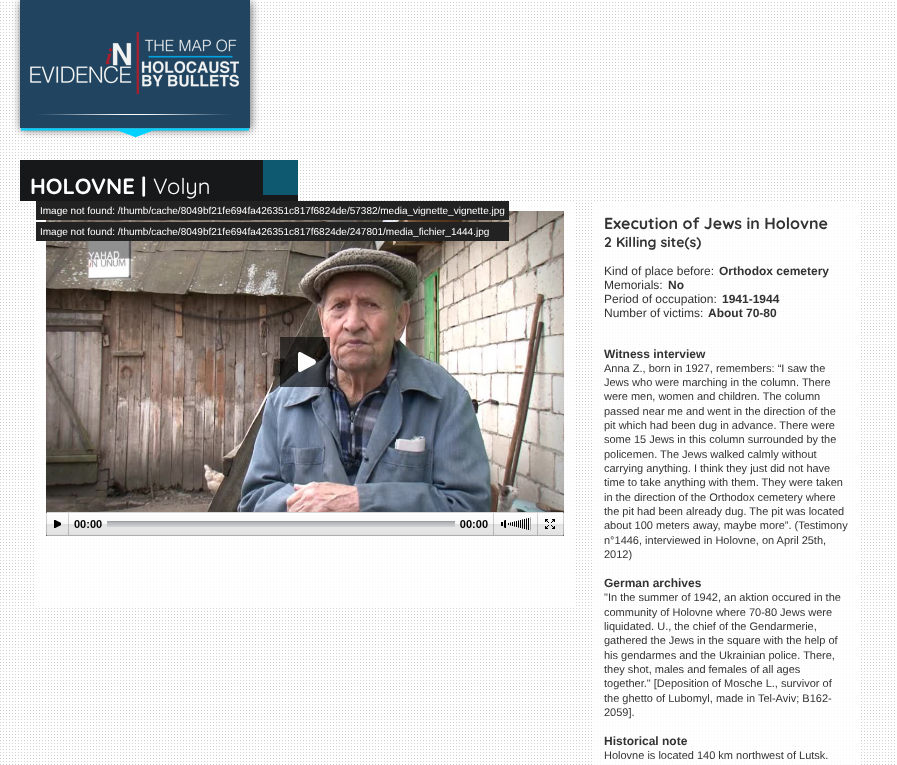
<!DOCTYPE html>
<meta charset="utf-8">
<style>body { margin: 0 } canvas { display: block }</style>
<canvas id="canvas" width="897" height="765"></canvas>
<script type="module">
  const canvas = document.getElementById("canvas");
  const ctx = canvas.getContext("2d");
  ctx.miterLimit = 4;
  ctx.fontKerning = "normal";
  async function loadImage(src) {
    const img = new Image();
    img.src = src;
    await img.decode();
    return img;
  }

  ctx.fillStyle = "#ffffff";
  ctx.fillRect(0, 0, 897, 765);
  ctx.drawImage(await loadImage("img3.png"), 0, 2, 895, 763);
  ctx.fillStyle = "rgba(0, 0, 0, 0.6)";
  ctx.filter = "blur(5px)";
  ctx.beginPath();
  ctx.rect(21, 2, 230, 128);
  ctx.fill();
  ctx.filter = "none";
  ctx.fillStyle = "#214561";
  ctx.fillRect(20, 0, 230, 128);
  ctx.drawImage(await loadImage("img1.png"), 30, 32, 209, 83);
  ctx.drawImage(await loadImage("img2.png"), 20, 128, 229, 10);
  ctx.fillStyle = "#16181a";
  ctx.fillRect(20, 160, 278, 41);
  ctx.font = "bold 22px Quicksand";
  ctx.fillStyle = "#ffffff";
  ctx.fillText("HOLOVNE |", 30, 194);
  ctx.font = "22px Quicksand";
  ctx.fillText("Volyn", 153, 194);
  ctx.fillStyle = "#0e5870";
  ctx.fillRect(263, 160, 35, 35);
  ctx.fillStyle = "rgba(255, 255, 255, 0.8)";
  ctx.fillRect(36, 203, 538, 403);
  ctx.drawImage(await loadImage("img4.png"), 46, 211, 518, 325);
  ctx.fillStyle = "#222222";
  ctx.fillRect(36, 201, 473, 19);
  ctx.font = "10px Liberation Sans";
  ctx.fillStyle = "#ffffff";
  ctx.fillText("Image not found: /thumb/cache/8049bf21fe694fa426351c817f6824de/57382/media_vignette_vignette.jpg", 40, 214);
  ctx.fillStyle = "#222222";
  ctx.fillRect(36, 222, 473, 19);
  ctx.fillStyle = "#ffffff";
  ctx.fillText("Image not found: /thumb/cache/8049bf21fe694fa426351c817f6824de/247801/media_fichier_1444.jpg", 40, 235);
  ctx.fillStyle = "rgba(255, 255, 255, 0.8)";
  ctx.fillRect(594, 203, 265, 562);
  ctx.font = "bold 16px Quicksand";
  ctx.fillStyle = "#333333";
  ctx.fillText("Execution of Jews in Holovne", 604, 229);
  ctx.font = "bold 14px Quicksand";
  ctx.fillText("2 Killing site(s)", 604, 247);
  ctx.font = "12px Liberation Sans";
  ctx.fillText("Kind of place before:", 604, 275);
  ctx.font = "bold 12px Liberation Sans";
  ctx.fillText("Orthodox cemetery", 719, 275);
  ctx.font = "12px Liberation Sans";
  ctx.fillText("Memorials:", 604, 289);
  ctx.font = "bold 12px Liberation Sans";
  ctx.fillText("No", 668, 289);
  ctx.font = "12px Liberation Sans";
  ctx.fillText("Period of occupation:", 604, 303);
  ctx.font = "bold 12px Liberation Sans";
  ctx.fillText("1941-1944", 722, 303);
  ctx.font = "12px Liberation Sans";
  ctx.fillText("Number of victims:", 604, 317);
  ctx.font = "bold 12px Liberation Sans";
  ctx.fillText("About 70-80", 708, 317);
  ctx.fillText("Witness interview", 604, 358);
  ctx.font = "11px Liberation Sans";
  ctx.fillText("Anna Z., born in 1927, remembers: “I saw the", 604, 372);
  ctx.fillText("Jews who were marching in the column. There", 604, 386);
  ctx.fillText("were men, women and children. The column", 604, 400);
  ctx.fillText("passed near me and went in the direction of the", 604, 415);
  ctx.fillText("pit which had been dug in advance. There were", 604, 429);
  ctx.fillText("some 15 Jews in this column surrounded by the", 604, 443);
  ctx.fillText("policemen. The Jews walked calmly without", 604, 458);
  ctx.fillText("carrying anything. I think they just did not have", 604, 472);
  ctx.fillText("time to take anything with them. They were taken", 604, 486);
  ctx.fillText("in the direction of the Orthodox cemetery where", 604, 501);
  ctx.fillText("the pit had been already dug. The pit was located", 604, 515);
  ctx.fillText("about 100 meters away, maybe more”. (Testimony", 604, 529);
  ctx.fillText("n°1446, interviewed in Holovne, on April 25th,", 604, 544);
  ctx.fillText("2012)", 604, 558);
  ctx.font = "bold 12px Liberation Sans";
  ctx.fillText("German archives", 604, 587);
  ctx.font = "11px Liberation Sans";
  ctx.fillText("\"In the summer of 1942, an aktion occured in the", 604, 601);
  ctx.fillText("community of Holovne where 70-80 Jews were", 604, 616);
  ctx.fillText("liquidated. U., the chief of the Gendarmerie,", 604, 630);
  ctx.fillText("gathered the Jews in the square with the help of", 604, 644);
  ctx.fillText("his gendarmes and the Ukrainian police. There,", 604, 659);
  ctx.fillText("they shot, males and females of all ages", 604, 673);
  ctx.fillText("together.\" [Deposition of Mosche L., survivor of", 604, 687);
  ctx.fillText("the ghetto of Lubomyl, made in Tel-Aviv; B162-", 604, 702);
  ctx.fillText("2059].", 604, 716);
  ctx.font = "bold 12px Liberation Sans";
  ctx.fillText("Historical note", 604, 745);
  ctx.font = "11px Liberation Sans";
  ctx.fillText("Holovne is located 140 km northwest of Lutsk.", 604, 759);
</script>
